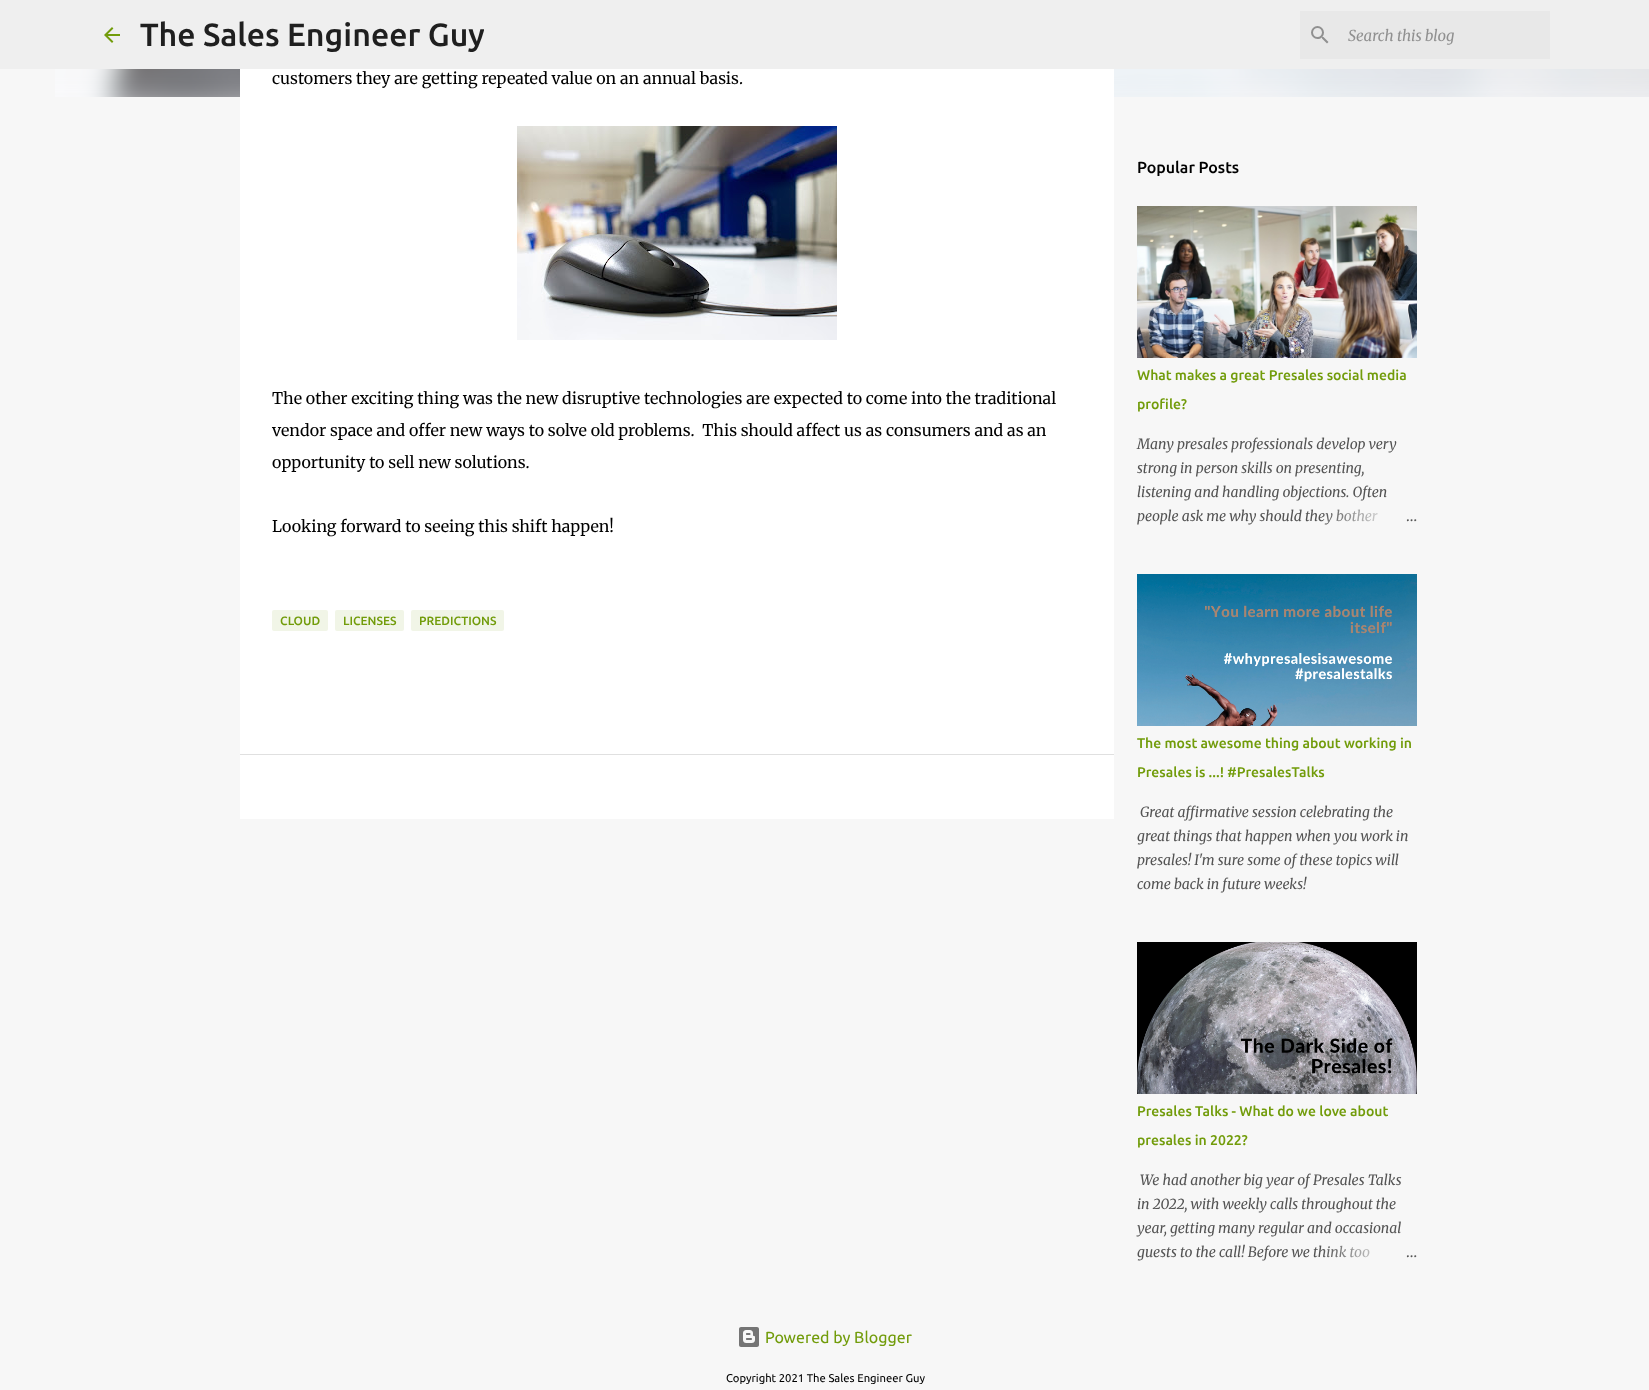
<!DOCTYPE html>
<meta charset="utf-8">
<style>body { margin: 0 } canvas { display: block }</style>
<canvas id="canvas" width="1649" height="1390"></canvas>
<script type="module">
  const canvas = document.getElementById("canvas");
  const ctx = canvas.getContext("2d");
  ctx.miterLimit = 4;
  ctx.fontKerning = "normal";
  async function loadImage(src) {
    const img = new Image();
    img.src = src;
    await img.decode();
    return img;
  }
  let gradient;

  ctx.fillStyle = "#f7f7f7";
  ctx.fillRect(0, 0, 1649, 1390);
  ctx.fillStyle = "#efefef";
  ctx.fillRect(0, 0, 1649, 69);
  ctx.drawImage(await loadImage("img1.png"), 104, 27, 16, 16);
  ctx.save();
  ctx.beginPath();
  ctx.rect(140, 16, 344, 37);
  ctx.clip();
  ctx.font = "500 32px Ubuntu";
  ctx.fillStyle = "#1f1f1f";
  ctx.fillText("The Sales Engineer Guy", 140, 46);
  ctx.restore();
  ctx.fillStyle = "#e8e8e8";
  ctx.fillRect(1300, 11, 250, 48);
  ctx.drawImage(await loadImage("img2.png"), 1311, 26, 18, 18);
  ctx.font = "italic 15px Merriweather";
  ctx.fillStyle = "#909090";
  ctx.fillText("Search this blog", 1348, 41);
  ctx.drawImage(await loadImage("img7.png"), 55, 69, 1594, 28);
  ctx.fillStyle = "#ffffff";
  ctx.fillRect(240, 69, 874, 685);
  ctx.font = "300 16px Merriweather";
  ctx.fillStyle = "#000000";
  ctx.fillText("customers they are getting repeated value on an annual basis.", 272, 84);
  ctx.drawImage(await loadImage("img3.png"), 517, 126, 320, 214);
  ctx.fillText("The other exciting thing was the new disruptive technologies are expected to come into the traditional", 272, 404);
  ctx.fillText("vendor space and offer new ways to solve old problems.  This should affect us as consumers and as an", 272, 436);
  ctx.fillText("opportunity to sell new solutions.", 272, 468);
  ctx.fillText("Looking forward to seeing this shift happen!", 272, 532);
  ctx.fillStyle = "#f1f5e7";
  ctx.beginPath();
  ctx.roundRect(272, 610, 56, 21, 2);
  ctx.fill();
  ctx.font = "500 12px Ubuntu";
  ctx.fillStyle = "#729c0b";
  ctx.fillText("CLOUD", 280, 625);
  ctx.fillStyle = "#f1f5e7";
  ctx.beginPath();
  ctx.roundRect(335, 610, 69, 21, 2);
  ctx.fill();
  ctx.fillStyle = "#729c0b";
  ctx.fillText("LICENSES", 343, 625);
  ctx.fillStyle = "#f1f5e7";
  ctx.beginPath();
  ctx.roundRect(411, 610, 93, 21, 2);
  ctx.fill();
  ctx.fillStyle = "#729c0b";
  ctx.fillText("PREDICTIONS", 419, 625);
  ctx.fillStyle = "#ffffff";
  ctx.fillRect(240, 755, 874, 64);
  ctx.fillStyle = "#e0e0e0";
  ctx.fillRect(240, 754, 874, 1);
  ctx.font = "500 16px Ubuntu";
  ctx.fillStyle = "#000000";
  ctx.fillText("Popular Posts", 1137, 173);
  ctx.drawImage(await loadImage("img4.png"), 1137, 206, 280, 152);
  ctx.font = "500 14px Ubuntu";
  ctx.fillStyle = "#729c0b";
  ctx.fillText("What makes a great Presales social media", 1137, 380);
  ctx.fillText("profile?", 1137, 409);
  ctx.font = "italic 14px Merriweather";
  ctx.fillStyle = "#535353";
  ctx.fillText("Many presales professionals develop very", 1137, 449);
  ctx.fillText("strong in person skills on presenting,", 1137, 473);
  ctx.fillText("listening and handling objections. Often", 1137, 497);
  ctx.fillText("people ask me why should they bother", 1137, 521);
  gradient = ctx.createLinearGradient(1417, 516, 1321, 516);
  gradient.addColorStop(0, "#f7f7f7");
  gradient.addColorStop(0.2, "#f7f7f7");
  gradient.addColorStop(1, "rgba(247, 247, 247, 0)");
  ctx.fillStyle = gradient;
  ctx.fillRect(1323, 509, 55, 16);
  ctx.font = "300 14px Merriweather";
  ctx.fillStyle = "#535353";
  ctx.fillText("…", 1406, 521);
  ctx.drawImage(await loadImage("img5.png"), 1137, 574, 280, 152);
  ctx.font = "500 14px Ubuntu";
  ctx.fillStyle = "#729c0b";
  ctx.fillText("The most awesome thing about working in", 1137, 748);
  ctx.fillText("Presales is ...! #PresalesTalks", 1137, 777);
  ctx.font = "italic 14px Merriweather";
  ctx.fillStyle = "#535353";
  ctx.fillText("Great affirmative session celebrating the", 1140, 817);
  ctx.fillText("great things that happen when you work in", 1137, 841);
  ctx.fillText("presales! I'm sure some of these topics will", 1137, 865);
  ctx.fillText("come back in future weeks!", 1137, 889);
  ctx.drawImage(await loadImage("img6.png"), 1137, 942, 280, 152);
  ctx.font = "500 14px Ubuntu";
  ctx.fillStyle = "#729c0b";
  ctx.fillText("Presales Talks - What do we love about", 1137, 1116);
  ctx.fillText("presales in 2022?", 1137, 1145);
  ctx.font = "italic 14px Merriweather";
  ctx.fillStyle = "#535353";
  ctx.fillText("We had another big year of Presales Talks", 1140, 1185);
  ctx.fillText("in 2022, with weekly calls throughout the", 1137, 1209);
  ctx.fillText("year, getting many regular and occasional", 1137, 1233);
  ctx.fillText("guests to the call! Before we think too", 1137, 1257);
  gradient = ctx.createLinearGradient(1417, 1252, 1321, 1252);
  gradient.addColorStop(0, "#f7f7f7");
  gradient.addColorStop(0.2, "#f7f7f7");
  gradient.addColorStop(1, "rgba(247, 247, 247, 0)");
  ctx.fillStyle = gradient;
  ctx.fillRect(1323, 1245, 47, 13);
  ctx.font = "300 14px Merriweather";
  ctx.fillStyle = "#535353";
  ctx.fillText("…", 1406, 1257);
  ctx.drawImage(await loadImage("img8.png"), 739, 1327, 20, 20);
  ctx.font = "16px Ubuntu";
  ctx.fillStyle = "#729c0b";
  ctx.fillText("Powered by Blogger", 765, 1343);
  ctx.font = "11.25px Ubuntu";
  ctx.fillStyle = "#000000";
  ctx.fillText("Copyright 2021 The Sales Engineer Guy", 726, 1382);
</script>
